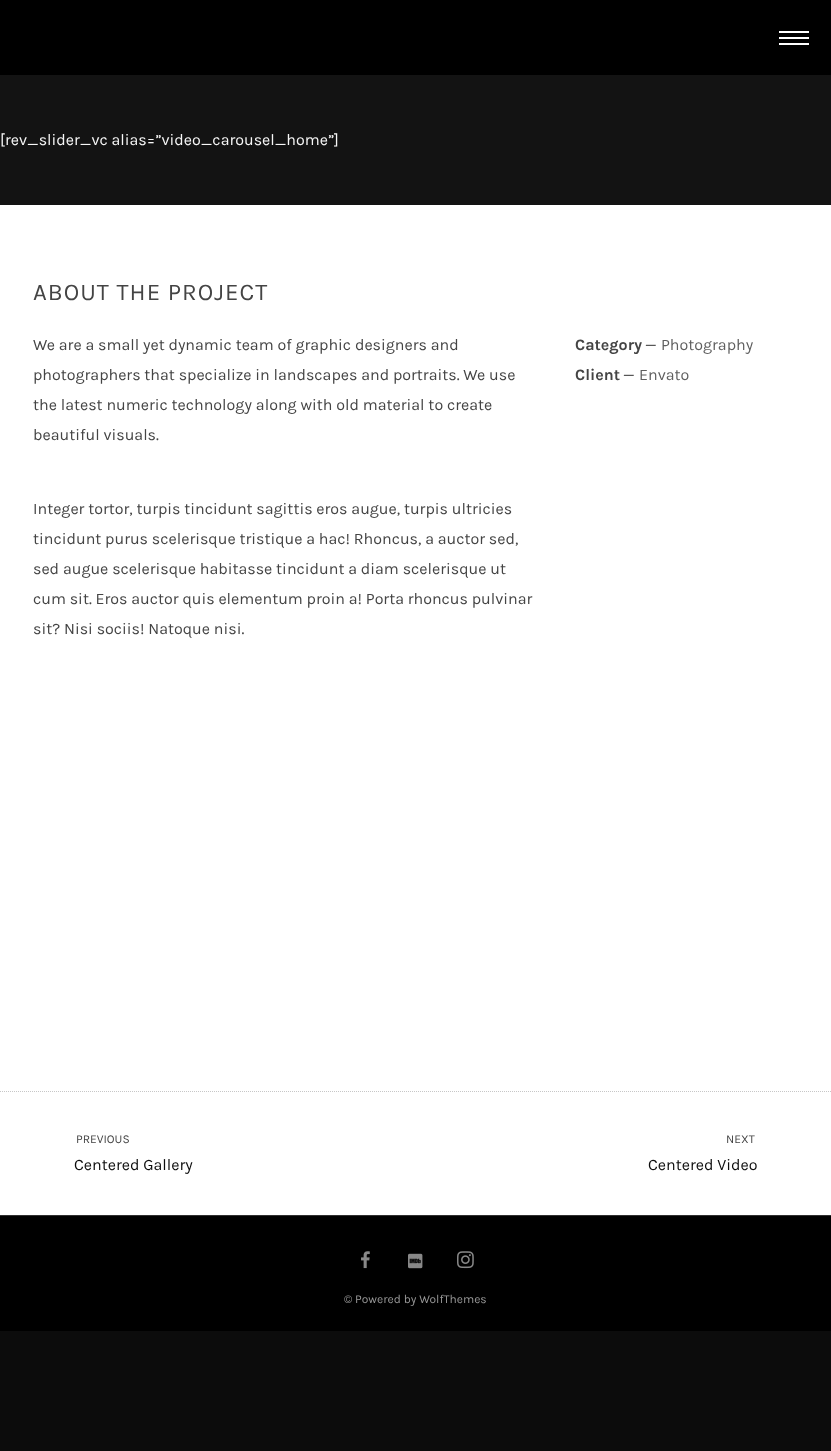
<!DOCTYPE html>
<meta charset="utf-8">
<style>body { margin: 0 } canvas { display: block }</style>
<canvas id="canvas" width="831" height="1451"></canvas>
<script type="module">
  const canvas = document.getElementById("canvas");
  const ctx = canvas.getContext("2d");
  ctx.miterLimit = 4;
  ctx.fontKerning = "normal";
  async function loadImage(src) {
    const img = new Image();
    img.src = src;
    await img.decode();
    return img;
  }

  ctx.fillStyle = "#0c0c0c";
  ctx.fillRect(0, 0, 831, 1451);
  ctx.fillStyle = "#000000";
  ctx.fillRect(0, 0, 831, 75);
  ctx.fillStyle = "#ffffff";
  ctx.fillRect(779, 31, 30, 2);
  ctx.fillRect(779, 37, 30, 2);
  ctx.fillRect(779, 43, 30, 2);
  ctx.fillStyle = "#131313";
  ctx.fillRect(0, 75, 831, 130);
  ctx.font = "16px Karla";
  ctx.fillStyle = "#f7f7f7";
  ctx.fillText("[rev_slider_vc alias=”video_carousel_home”]", 0, 145);
  ctx.fillStyle = "#ffffff";
  ctx.fillRect(0, 205, 831, 1010);
  ctx.letterSpacing = "1px";
  ctx.font = "24px Karla";
  ctx.fillStyle = "#444444";
  ctx.fillText("ABOUT THE PROJECT", 33, 300);
  ctx.letterSpacing = "0px";
  ctx.font = "16px Karla";
  ctx.fillText("We are a small yet dynamic team of graphic designers and", 33, 350);
  ctx.fillText("photographers that specialize in landscapes and portraits. We use", 33, 380);
  ctx.fillText("the latest numeric technology along with old material to create", 33, 410);
  ctx.fillText("beautiful visuals.", 33, 440);
  ctx.fillText("Integer tortor, turpis tincidunt sagittis eros augue, turpis ultricies", 33, 514);
  ctx.fillText("tincidunt purus scelerisque tristique a hac! Rhoncus, a auctor sed,", 33, 544);
  ctx.fillText("sed augue scelerisque habitasse tincidunt a diam scelerisque ut", 33, 574);
  ctx.fillText("cum sit. Eros auctor quis elementum proin a! Porta rhoncus pulvinar", 33, 604);
  ctx.fillText("sit? Nisi sociis! Natoque nisi.", 33, 634);
  ctx.font = "bold 16px Karla";
  ctx.fillText("Category", 575, 350);
  ctx.font = "16px Karla";
  ctx.fillText("—", 645, 350);
  ctx.fillStyle = "#5f5f5f";
  ctx.fillText("Photography", 661, 350);
  ctx.font = "bold 16px Karla";
  ctx.fillStyle = "#444444";
  ctx.fillText("Client", 575, 380);
  ctx.font = "16px Karla";
  ctx.fillText("—", 623, 380);
  ctx.fillStyle = "#5f5f5f";
  ctx.fillText("Envato", 639, 380);
  ctx.beginPath();
  ctx.moveTo(0, 1091.5);
  ctx.lineTo(831, 1091.5);
  ctx.strokeStyle = "#c7c7c7";
  ctx.setLineDash([1, 1]);
  ctx.stroke();
  ctx.font = "12px Karla";
  ctx.fillStyle = "#444444";
  ctx.fillText("PREVIOUS", 76, 1143);
  ctx.font = "16px Karla";
  ctx.fillStyle = "#0d0d0d";
  ctx.fillText("Centered Gallery", 74, 1170);
  ctx.font = "12px Karla";
  ctx.fillStyle = "#444444";
  ctx.fillText("NEXT", 726, 1143);
  ctx.font = "16px Karla";
  ctx.fillStyle = "#0d0d0d";
  ctx.fillText("Centered Video", 648, 1170);
  ctx.fillStyle = "#000000";
  ctx.fillRect(0, 1216, 831, 115);
  ctx.fillStyle = "#2f2f2f";
  ctx.fillRect(0, 1215, 831, 1);
  ctx.drawImage(await loadImage("img1.png"), 361, 1251, 9, 18);
  ctx.drawImage(await loadImage("img2.png"), 408, 1253, 15, 16);
  ctx.drawImage(await loadImage("img3.png"), 457, 1251, 17, 18);
  ctx.font = "12px Karla";
  ctx.fillStyle = "#999999";
  ctx.fillText("© Powered by WolfThemes", 344, 1303);
</script>
